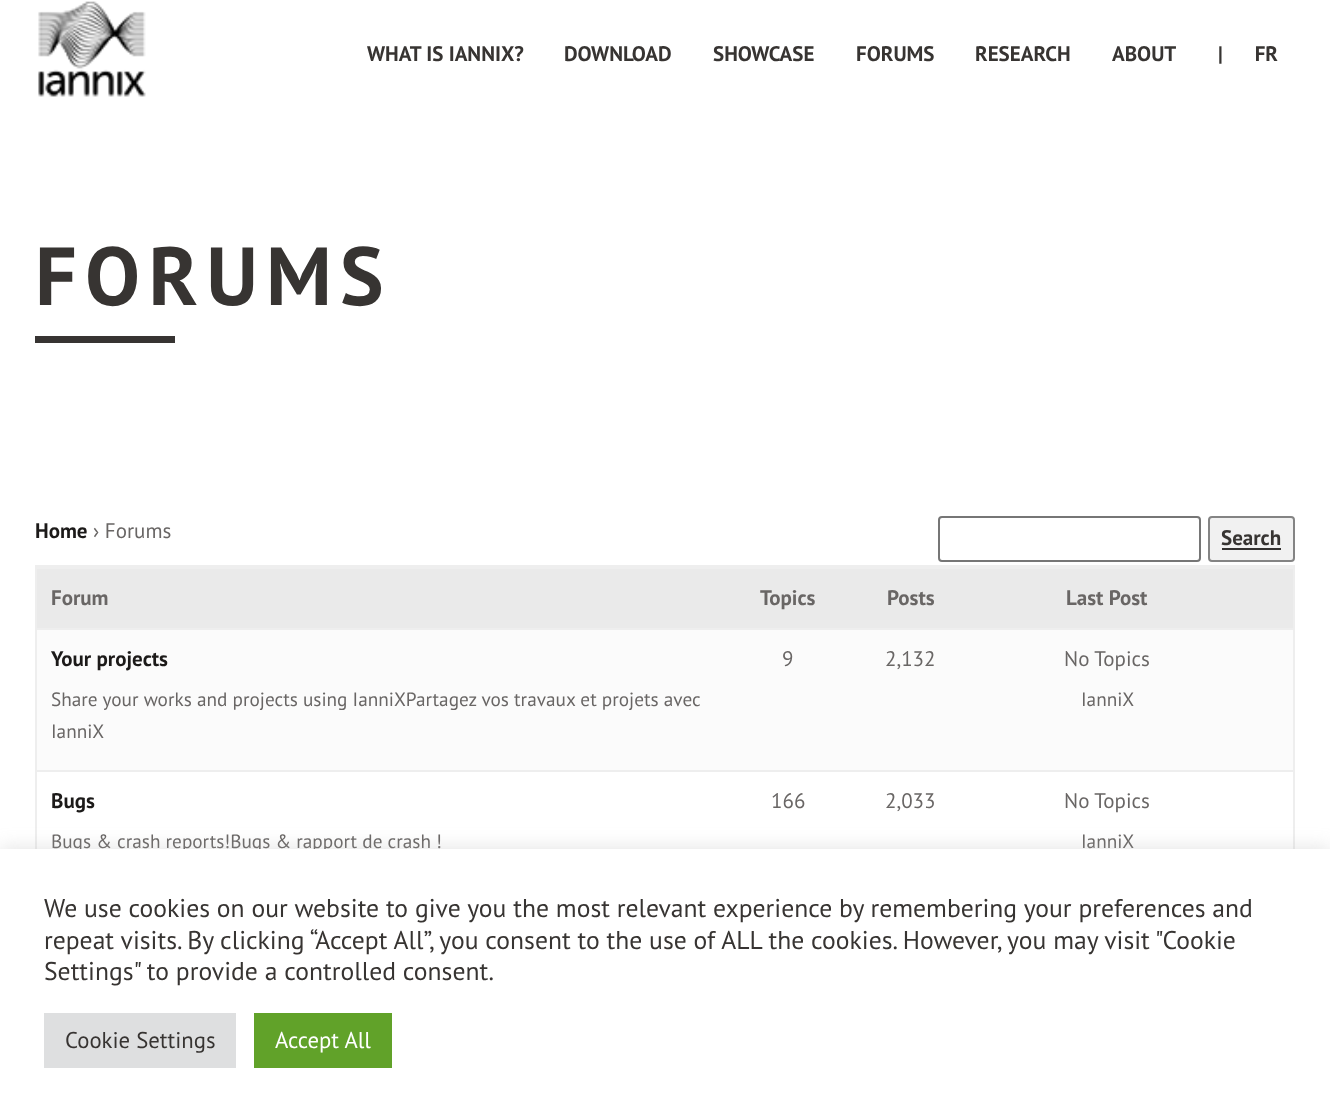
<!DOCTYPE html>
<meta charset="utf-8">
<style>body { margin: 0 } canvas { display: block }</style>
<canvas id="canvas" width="1330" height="1119"></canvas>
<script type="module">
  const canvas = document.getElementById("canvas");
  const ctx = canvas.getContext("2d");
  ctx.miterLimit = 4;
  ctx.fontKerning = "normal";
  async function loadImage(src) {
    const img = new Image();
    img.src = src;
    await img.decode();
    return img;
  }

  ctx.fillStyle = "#ffffff";
  ctx.fillRect(0, 0, 1330, 1119);
  ctx.drawImage(await loadImage("img1.png"), 38, 1, 108, 96);
  ctx.font = "bold 21px PT Sans";
  ctx.fillStyle = "#373432";
  ctx.fillText("WHAT IS IANNIX?", 367, 61);
  ctx.fillText("DOWNLOAD", 564, 61);
  ctx.fillText("SHOWCASE", 713, 61);
  ctx.fillText("FORUMS", 856, 61);
  ctx.fillText("RESEARCH", 975, 61);
  ctx.fillText("ABOUT", 1112, 61);
  ctx.fillText("|      FR", 1218, 61);
  ctx.letterSpacing = "8.25px";
  ctx.font = "bold 82.25px PT Sans";
  ctx.fillText("FORUMS", 35, 305);
  ctx.fillRect(35, 336, 140, 7);
  ctx.letterSpacing = "0px";
  ctx.font = "bold 21px PT Sans";
  ctx.fillStyle = "#1c1a19";
  ctx.fillText("Home", 35, 538);
  ctx.font = "21px PT Sans";
  ctx.fillStyle = "#696665";
  ctx.fillText("› Forums", 93, 538);
  ctx.beginPath();
  ctx.roundRect(939, 517, 261, 44, 3);
  ctx.strokeStyle = "#767676";
  ctx.lineWidth = 2;
  ctx.stroke();
  ctx.fillStyle = "#f1f1f1";
  ctx.beginPath();
  ctx.roundRect(1209, 517, 85, 44, 3);
  ctx.fill();
  ctx.strokeStyle = "#848484";
  ctx.stroke();
  ctx.font = "bold 21px PT Sans";
  ctx.fillStyle = "#373432";
  ctx.fillText("Search", 1221, 545);
  ctx.fillStyle = "#333130";
  ctx.fillRect(1222, 548, 59, 2);
  ctx.strokeStyle = "#eeeeee";
  ctx.strokeRect(36, 566, 1258, 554);
  ctx.fillStyle = "#eaeaea";
  ctx.fillRect(37, 569, 1256, 59);
  ctx.fillStyle = "#eeeeee";
  ctx.fillRect(37, 567, 1256, 2);
  ctx.fillStyle = "#696665";
  ctx.fillText("Forum", 51, 605);
  ctx.fillText("Topics", 760, 605);
  ctx.fillText("Posts", 887, 605);
  ctx.fillText("Last Post", 1066, 605);
  ctx.fillStyle = "#fbfbfb";
  ctx.fillRect(37, 630, 1256, 140);
  ctx.fillStyle = "#eeeeee";
  ctx.fillRect(37, 628, 1256, 2);
  ctx.fillStyle = "#1c1a19";
  ctx.fillText("Your projects", 51, 666);
  ctx.font = "19.25px PT Sans";
  ctx.fillStyle = "#696665";
  ctx.fillText("Share your works and projects using IanniXPartagez vos travaux et projets avec", 51, 706);
  ctx.fillText("IanniX", 51, 738);
  ctx.font = "21px PT Sans";
  ctx.fillText("9", 782, 666);
  ctx.fillText("2,132", 885, 666);
  ctx.fillText("No Topics", 1064, 666);
  ctx.font = "19.25px PT Sans";
  ctx.fillText("IanniX", 1081, 706);
  ctx.fillStyle = "#eeeeee";
  ctx.fillRect(37, 770, 1256, 2);
  ctx.font = "bold 21px PT Sans";
  ctx.fillStyle = "#1c1a19";
  ctx.fillText("Bugs", 51, 808);
  ctx.font = "19.25px PT Sans";
  ctx.fillStyle = "#696665";
  ctx.fillText("Bugs & crash reports!Bugs & rapport de crash !", 51, 848);
  ctx.font = "21px PT Sans";
  ctx.fillText("166", 771, 808);
  ctx.fillText("2,033", 885, 808);
  ctx.fillText("No Topics", 1064, 808);
  ctx.font = "19.25px PT Sans";
  ctx.fillText("IanniX", 1081, 848);
  ctx.fillStyle = "rgba(172, 171, 171, 0.3)";
  ctx.filter = "blur(9px)";
  ctx.beginPath();
  ctx.rect(0, 847, 1330, 271);
  ctx.fill();
  ctx.filter = "none";
  ctx.fillStyle = "#ffffff";
  ctx.fillRect(0, 849, 1330, 270);
  ctx.font = "25.65px PT Sans";
  ctx.fillStyle = "#373432";
  ctx.fillText("We use cookies on our website to give you the most relevant experience by remembering your preferences and", 44, 917);
  ctx.fillText("repeat visits. By clicking “Accept All”, you consent to the use of ALL the cookies. However, you may visit \"Cookie", 44, 949);
  ctx.fillText("Settings\" to provide a controlled consent.", 44, 980);
  ctx.fillStyle = "#dedfe0";
  ctx.fillRect(44, 1013, 192, 55);
  ctx.font = "22.75px PT Sans";
  ctx.fillStyle = "#373432";
  ctx.fillText("Cookie Settings", 65, 1048);
  ctx.fillStyle = "#61a229";
  ctx.fillRect(254, 1013, 138, 55);
  ctx.fillStyle = "#ffffff";
  ctx.fillText("Accept All", 275, 1048);
</script>
